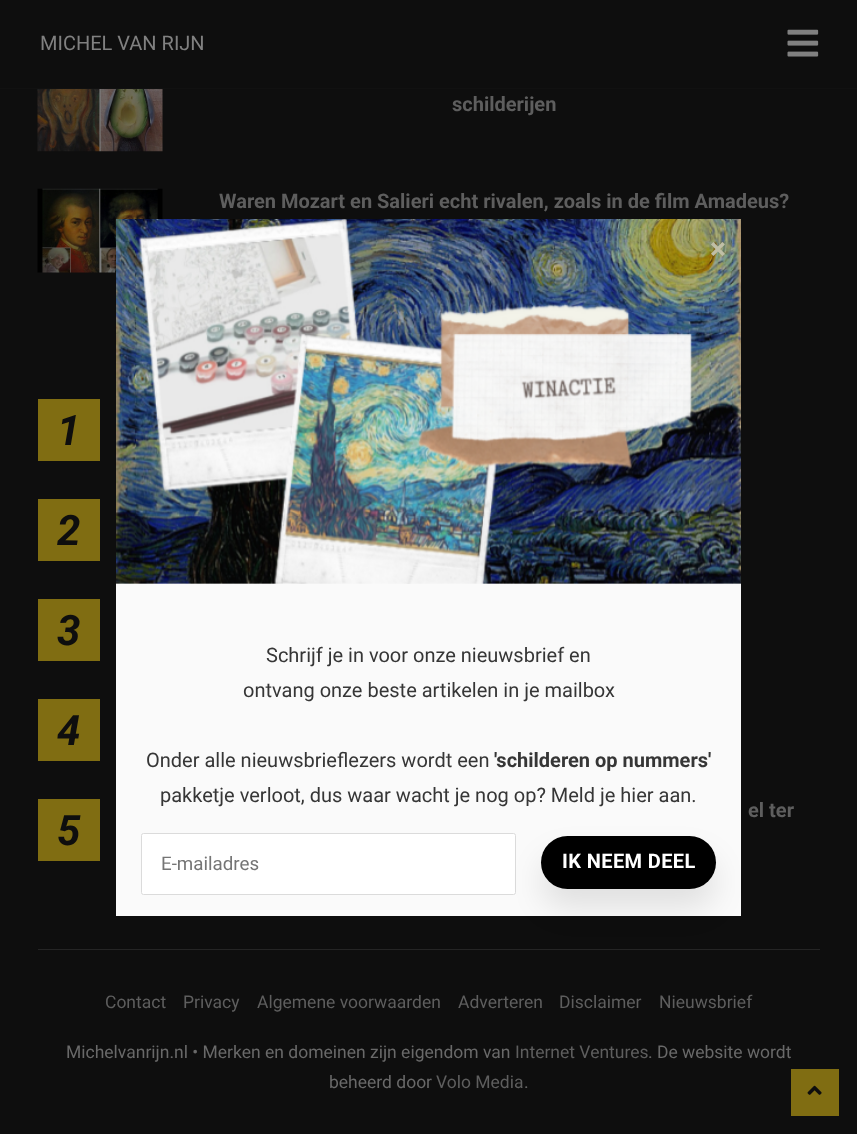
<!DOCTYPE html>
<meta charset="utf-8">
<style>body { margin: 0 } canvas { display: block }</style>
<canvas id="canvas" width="857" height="1134"></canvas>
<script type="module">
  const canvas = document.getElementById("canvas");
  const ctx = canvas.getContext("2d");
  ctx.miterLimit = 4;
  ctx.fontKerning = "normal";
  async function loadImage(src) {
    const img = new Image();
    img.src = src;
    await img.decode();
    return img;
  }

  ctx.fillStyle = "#0e0e0e";
  ctx.fillRect(0, 0, 857, 1134);
  ctx.fillStyle = "#111111";
  ctx.fillRect(0, 88, 857, 1);
  ctx.font = "20px Roboto";
  ctx.fillStyle = "#808080";
  ctx.fillText("MICHEL VAN RIJN", 40, 50);
  ctx.drawImage(await loadImage("img1.png"), 787, 29, 32, 28);
  ctx.drawImage(await loadImage("img2.png"), 37, 89, 126, 63);
  ctx.font = "bold 20px Roboto";
  ctx.fillStyle = "#5e5e5e";
  ctx.fillText("schilderijen", 452, 111);
  ctx.drawImage(await loadImage("img3.png"), 37, 188, 126, 85);
  ctx.fillText("Waren Mozart en Salieri echt rivalen, zoals in de film Amadeus?", 219, 208);
  ctx.fillStyle = "#806d12";
  ctx.fillRect(38, 399, 62, 62);
  ctx.font = "italic bold 42px Roboto";
  ctx.fillStyle = "#0e0e0e";
  ctx.fillText("1", 57, 445);
  ctx.fillStyle = "#806d12";
  ctx.fillRect(38, 499, 62, 62);
  ctx.fillStyle = "#0e0e0e";
  ctx.fillText("2", 57, 545);
  ctx.fillStyle = "#806d12";
  ctx.fillRect(38, 599, 62, 62);
  ctx.fillStyle = "#0e0e0e";
  ctx.fillText("3", 57, 645);
  ctx.fillStyle = "#806d12";
  ctx.fillRect(38, 699, 62, 62);
  ctx.fillStyle = "#0e0e0e";
  ctx.fillText("4", 57, 745);
  ctx.font = "bold 20px Roboto";
  ctx.fillStyle = "#5e5e5e";
  ctx.fillText("el ter", 748, 817);
  ctx.fillStyle = "#806d12";
  ctx.fillRect(38, 799, 62, 62);
  ctx.font = "italic bold 42px Roboto";
  ctx.fillStyle = "#0e0e0e";
  ctx.fillText("5", 57, 845);
  ctx.fillStyle = "#252525";
  ctx.fillRect(38, 949, 782, 1);
  ctx.font = "17.5px Roboto";
  ctx.fillStyle = "#5e5e5e";
  ctx.fillText("Contact", 105, 1008);
  ctx.fillText("Privacy", 183, 1008);
  ctx.fillText("Algemene voorwaarden", 257, 1008);
  ctx.fillText("Adverteren", 458, 1008);
  ctx.fillText("Disclaimer", 559, 1008);
  ctx.fillText("Nieuwsbrief", 659, 1008);
  ctx.fillStyle = "#696969";
  ctx.fillText("Michelvanrijn.nl • Merken en domeinen zijn eigendom van", 66, 1058);
  ctx.fillStyle = "#5e5e5e";
  ctx.fillText("Internet Ventures", 515, 1058);
  ctx.fillStyle = "#696969";
  ctx.fillText(". De website wordt", 648, 1058);
  ctx.fillText("beheerd door", 329, 1088);
  ctx.fillStyle = "#5e5e5e";
  ctx.fillText("Volo Media", 436, 1088);
  ctx.fillStyle = "#696969";
  ctx.fillText(".", 524, 1088);
  ctx.fillStyle = "#fafafa";
  ctx.fillRect(116, 583, 625, 333);
  ctx.drawImage(await loadImage("img4.png"), 116, 219, 625, 365);
  ctx.font = "bold 30px Roboto";
  ctx.fillStyle = "#c0bfa7";
  ctx.fillText("×", 710, 259);
  ctx.font = "20px Roboto";
  ctx.fillStyle = "#363636";
  ctx.fillText("Schrijf je in voor onze nieuwsbrief en", 266, 662);
  ctx.fillText("ontvang onze beste artikelen in je mailbox", 243, 697);
  ctx.fillText("Onder alle nieuwsbrieflezers wordt een", 146, 767);
  ctx.font = "bold 20px Roboto";
  ctx.fillText("'schilderen op nummers'", 494, 767);
  ctx.font = "20px Roboto";
  ctx.fillText("pakketje verloot, dus waar wacht je nog op? Meld je hier aan.", 160, 802);
  ctx.fillStyle = "#ffffff";
  ctx.beginPath();
  ctx.roundRect(141.5, 833.5, 374, 61, 2);
  ctx.fill();
  ctx.strokeStyle = "#dbdbdb";
  ctx.stroke();
  ctx.font = "18.75px Roboto";
  ctx.fillStyle = "#757575";
  ctx.fillText("E-mailadres", 161, 870);
  ctx.fillStyle = "rgba(0, 0, 0, 0.1)";
  ctx.filter = "blur(15.5px)";
  ctx.beginPath();
  ctx.roundRect(541, 855, 175, 53, 26.5);
  ctx.fill();
  ctx.filter = "none";
  ctx.fillStyle = "#000000";
  ctx.beginPath();
  ctx.roundRect(541, 836, 175, 53, 26.5);
  ctx.fill();
  ctx.letterSpacing = "0.4px";
  ctx.font = "bold 20px Roboto";
  ctx.fillStyle = "#ffffff";
  ctx.fillText("IK NEEM DEEL", 562, 868);
  ctx.fillStyle = "#806d12";
  ctx.fillRect(791, 1069, 48, 47);
  ctx.drawImage(await loadImage("img5.png"), 807, 1085, 15, 10);
</script>
